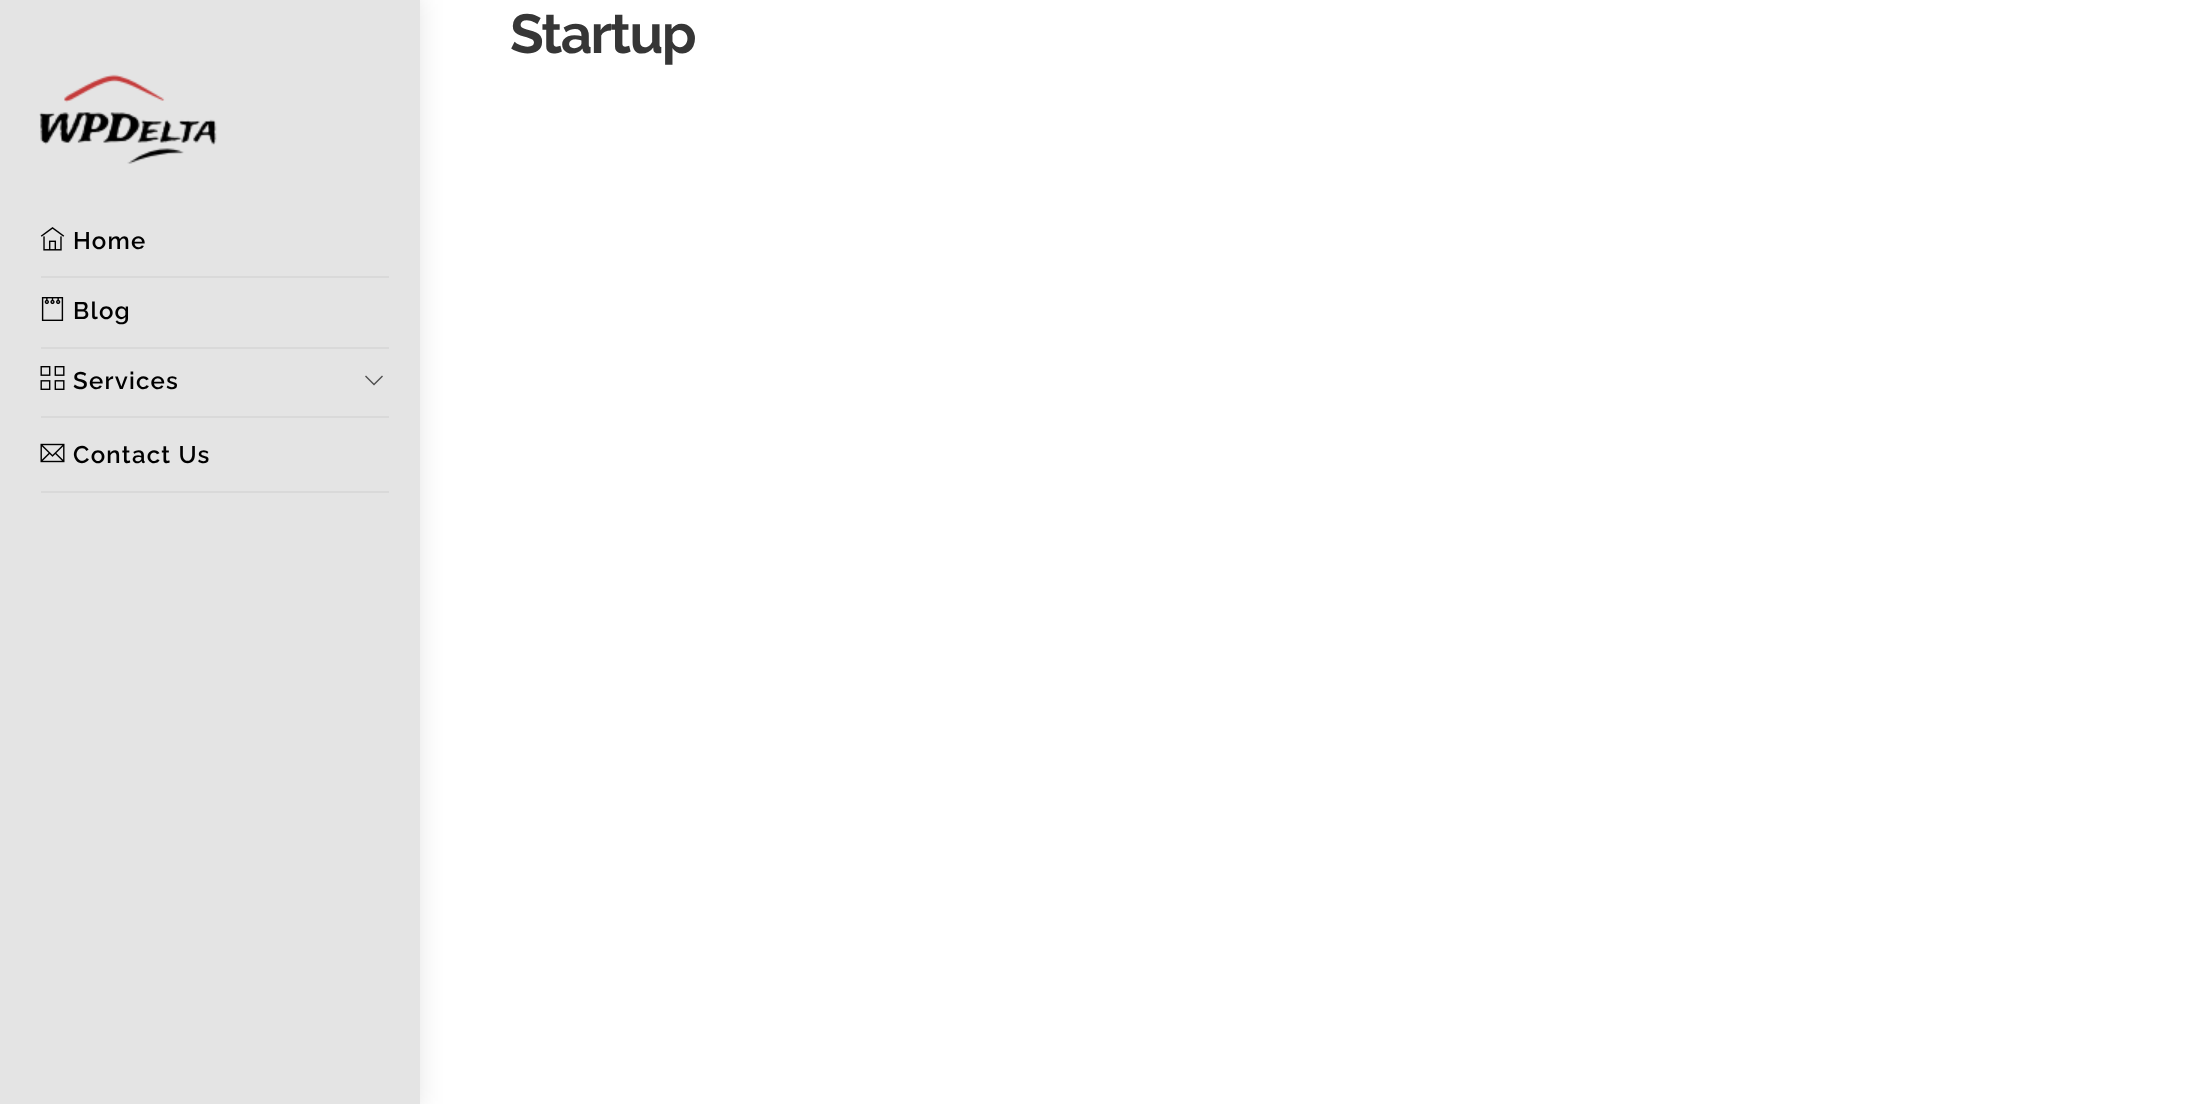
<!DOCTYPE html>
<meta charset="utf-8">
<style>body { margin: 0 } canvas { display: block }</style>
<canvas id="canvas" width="2208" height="1104"></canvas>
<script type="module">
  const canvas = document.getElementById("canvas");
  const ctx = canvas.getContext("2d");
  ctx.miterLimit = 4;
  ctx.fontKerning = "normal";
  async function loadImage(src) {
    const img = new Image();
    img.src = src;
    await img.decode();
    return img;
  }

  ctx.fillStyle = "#ffffff";
  ctx.fillRect(0, 0, 2208, 1104);
  ctx.letterSpacing = "-1.75px";
  ctx.font = "bold 55px Raleway";
  ctx.fillStyle = "#363636";
  ctx.fillText("Startup", 510, 53);
  ctx.fillStyle = "rgba(0, 0, 0, 0.1)";
  ctx.filter = "blur(12px)";
  ctx.beginPath();
  ctx.rect(-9, -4, 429, 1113);
  ctx.fill();
  ctx.filter = "none";
  ctx.fillStyle = "#e4e4e4";
  ctx.fillRect(0, 0, 420, 1104);
  ctx.drawImage(await loadImage("img1.png"), 39, 74, 178, 90);
  ctx.fillStyle = "#d9d9d9";
  ctx.fillRect(41, 276, 348, 2);
  ctx.drawImage(await loadImage("img2.png"), 40, 227, 25, 24);
  ctx.letterSpacing = "1.25px";
  ctx.font = "600 24px Raleway";
  ctx.fillStyle = "#000000";
  ctx.fillText("Home", 73, 249);
  ctx.fillStyle = "#d9d9d9";
  ctx.fillRect(41, 347, 348, 2);
  ctx.drawImage(await loadImage("img3.png"), 41, 297, 23, 24);
  ctx.fillStyle = "#000000";
  ctx.fillText("Blog", 73, 319);
  ctx.fillStyle = "#d9d9d9";
  ctx.fillRect(41, 416, 348, 2);
  ctx.drawImage(await loadImage("img4.png"), 40, 366, 25, 24);
  ctx.fillStyle = "#000000";
  ctx.fillText("Services", 73, 389);
  ctx.fillStyle = "#505050";
  ctx.beginPath();
  ctx.moveTo(383, 376.5);
  ctx.lineTo(374, 385.5);
  ctx.lineTo(365, 376.5);
  ctx.lineTo(366, 375.5);
  ctx.lineTo(374, 383.5);
  ctx.lineTo(382, 375.5);
  ctx.closePath();
  ctx.fill();
  ctx.fillStyle = "#d9d9d9";
  ctx.fillRect(41, 491, 348, 2);
  ctx.drawImage(await loadImage("img5.png"), 40, 443, 25, 20);
  ctx.fillStyle = "#000000";
  ctx.fillText("Contact Us", 73, 463);
</script>
